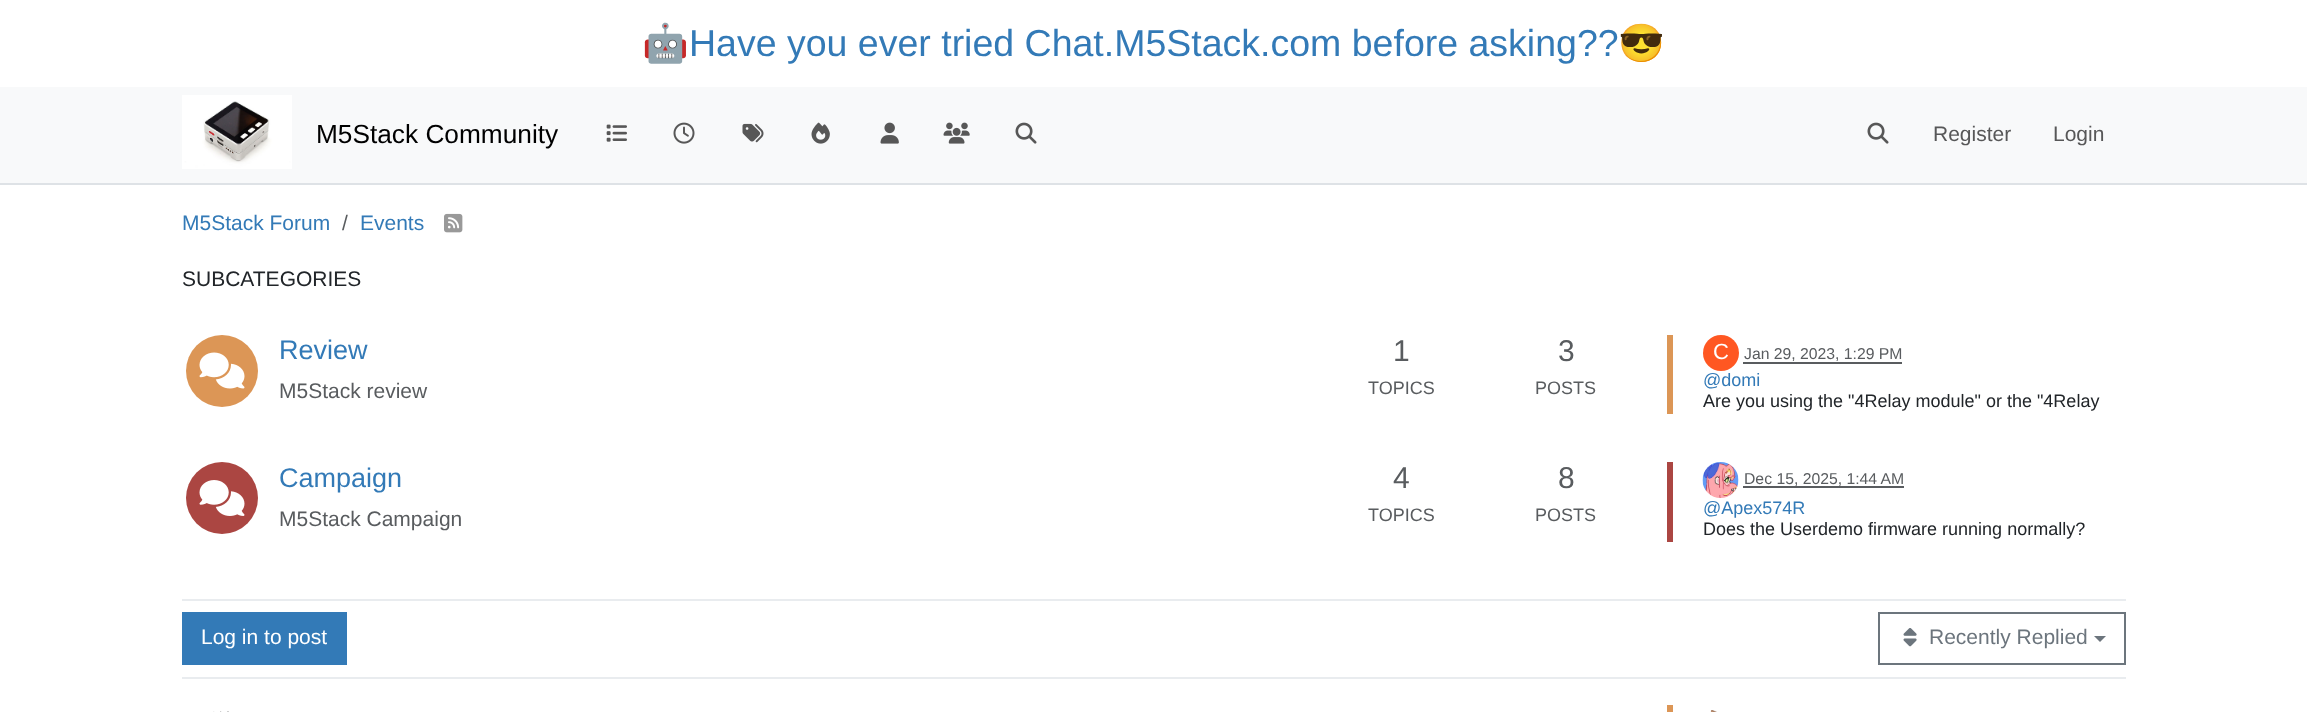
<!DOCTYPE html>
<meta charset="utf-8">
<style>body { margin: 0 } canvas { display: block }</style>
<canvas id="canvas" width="2307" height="712"></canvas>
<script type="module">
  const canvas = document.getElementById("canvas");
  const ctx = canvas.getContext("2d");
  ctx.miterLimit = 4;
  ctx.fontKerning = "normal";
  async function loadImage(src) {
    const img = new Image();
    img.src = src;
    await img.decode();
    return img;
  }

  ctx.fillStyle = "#ffffff";
  ctx.fillRect(0, 0, 2307, 712);
  ctx.font = "37.5px Noto Color Emoji";
  ctx.fillStyle = "#337ab7";
  ctx.fillText("🤖", 642, 56);
  ctx.font = "37.5px Liberation Sans";
  ctx.fillText("Have you ever tried Chat.M5Stack.com before asking??", 689, 56);
  ctx.font = "37.5px Noto Color Emoji";
  ctx.fillText("😎", 1618, 56);
  ctx.fillStyle = "#f8f9fa";
  ctx.fillRect(0, 87, 2307, 96);
  ctx.fillStyle = "#dee2e6";
  ctx.fillRect(0, 183, 2307, 2);
  ctx.drawImage(await loadImage("img1.png"), 182, 95, 110, 74);
  ctx.font = "26.25px Liberation Sans";
  ctx.fillStyle = "#000000";
  ctx.fillText("M5Stack Community", 316, 143);
  ctx.drawImage(await loadImage("img2.png"), 606, 124, 21, 18);
  ctx.drawImage(await loadImage("img3.png"), 673, 122, 22, 22);
  ctx.drawImage(await loadImage("img4.png"), 742, 123, 22, 20);
  ctx.drawImage(await loadImage("img5.png"), 811, 122, 19, 22);
  ctx.drawImage(await loadImage("img6.png"), 880, 122, 19, 22);
  ctx.drawImage(await loadImage("img7.png"), 943, 122, 27, 22);
  ctx.drawImage(await loadImage("img8.png"), 1015, 122, 22, 22);
  ctx.drawImage(await loadImage("img8.png"), 1867, 122, 22, 22);
  ctx.font = "21px Liberation Sans";
  ctx.fillStyle = "#575758";
  ctx.fillText("Register", 1933, 141);
  ctx.fillText("Login", 2053, 141);
  ctx.fillStyle = "#337ab7";
  ctx.fillText("M5Stack Forum", 182, 230);
  ctx.fillStyle = "#595c5f";
  ctx.fillText("/", 342, 230);
  ctx.fillStyle = "#337ab7";
  ctx.fillText("Events", 360, 230);
  ctx.drawImage(await loadImage("img9.png"), 444, 213, 19, 20);
  ctx.fillStyle = "#212529";
  ctx.fillText("SUBCATEGORIES", 182, 286);
  ctx.fillStyle = "#dc9656";
  ctx.beginPath();
  ctx.arc(222, 371, 36, 0, Math.PI * 2);
  ctx.fill();
  ctx.drawImage(await loadImage("img10.png"), 199, 352, 46, 37);
  ctx.font = "27px Liberation Sans";
  ctx.fillStyle = "#337ab7";
  ctx.fillText("Review", 279, 359);
  ctx.font = "21px Liberation Sans";
  ctx.fillStyle = "#595c5f";
  ctx.fillText("M5Stack review", 279, 398);
  ctx.font = "30px Liberation Sans";
  ctx.fillText("1", 1393, 361);
  ctx.font = "18px Liberation Sans";
  ctx.fillText("TOPICS", 1368, 394);
  ctx.font = "30px Liberation Sans";
  ctx.fillText("3", 1558, 361);
  ctx.font = "18px Liberation Sans";
  ctx.fillText("POSTS", 1535, 394);
  ctx.fillStyle = "#dc9656";
  ctx.fillRect(1667, 335, 6, 79);
  ctx.fillStyle = "#ff5722";
  ctx.beginPath();
  ctx.arc(1721, 353, 18, 0, Math.PI * 2);
  ctx.fill();
  ctx.font = "22px Liberation Sans";
  ctx.fillStyle = "#ffffff";
  ctx.fillText("C", 1713, 359);
  ctx.font = "15.75px Liberation Sans";
  ctx.fillStyle = "#595c5f";
  ctx.fillText("Jan 29, 2023, 1:29 PM", 1744, 359);
  ctx.fillRect(1743, 362, 159, 2);
  ctx.font = "18px Liberation Sans";
  ctx.fillStyle = "#337ab7";
  ctx.fillText("@domi", 1703, 386);
  ctx.fillStyle = "#212529";
  ctx.fillText("Are you using the \"4Relay module\" or the \"4Relay", 1703, 407);
  ctx.fillStyle = "#ab4642";
  ctx.beginPath();
  ctx.arc(222, 498, 36, 0, Math.PI * 2);
  ctx.fill();
  ctx.drawImage(await loadImage("img11.png"), 199, 480, 46, 36);
  ctx.font = "27px Liberation Sans";
  ctx.fillStyle = "#337ab7";
  ctx.fillText("Campaign", 279, 487);
  ctx.font = "21px Liberation Sans";
  ctx.fillStyle = "#595c5f";
  ctx.fillText("M5Stack Campaign", 279, 526);
  ctx.font = "30px Liberation Sans";
  ctx.fillText("4", 1393, 488);
  ctx.font = "18px Liberation Sans";
  ctx.fillText("TOPICS", 1368, 521);
  ctx.font = "30px Liberation Sans";
  ctx.fillText("8", 1558, 488);
  ctx.font = "18px Liberation Sans";
  ctx.fillText("POSTS", 1535, 521);
  ctx.fillStyle = "#ab4642";
  ctx.fillRect(1667, 462, 6, 80);
  ctx.drawImage(await loadImage("img12.png"), 1702, 462, 37, 36);
  ctx.font = "15.75px Liberation Sans";
  ctx.fillStyle = "#595c5f";
  ctx.fillText("Dec 15, 2025, 1:44 AM", 1744, 484);
  ctx.fillRect(1743, 486, 161, 2);
  ctx.font = "18px Liberation Sans";
  ctx.fillStyle = "#337ab7";
  ctx.fillText("@Apex574R", 1703, 514);
  ctx.fillStyle = "#212529";
  ctx.fillText("Does the Userdemo firmware running normally?", 1703, 535);
  ctx.fillStyle = "#e9ecef";
  ctx.fillRect(182, 599, 1944, 2);
  ctx.fillRect(182, 677, 1944, 2);
  ctx.fillStyle = "#337ab7";
  ctx.fillRect(182, 612, 165, 53);
  ctx.font = "21px Liberation Sans";
  ctx.fillStyle = "#ffffff";
  ctx.fillText("Log in to post", 201, 644);
  ctx.strokeStyle = "#6c757d";
  ctx.lineWidth = 2;
  ctx.strokeRect(1879, 613, 246, 51);
  ctx.drawImage(await loadImage("img13.png"), 1903, 628, 14, 19);
  ctx.fillStyle = "#6c757d";
  ctx.fillText("Recently Replied", 1929, 644);
  ctx.beginPath();
  ctx.moveTo(2094, 636);
  ctx.lineTo(2106, 636);
  ctx.lineTo(2100, 642);
  ctx.closePath();
  ctx.fill();
  ctx.drawImage(await loadImage("img14.png"), 213, 711, 16, 1);
  ctx.fillStyle = "#dc9656";
  ctx.fillRect(1667, 705, 6, 7);
  ctx.drawImage(await loadImage("img15.png"), 1710, 710, 7, 2);
</script>
